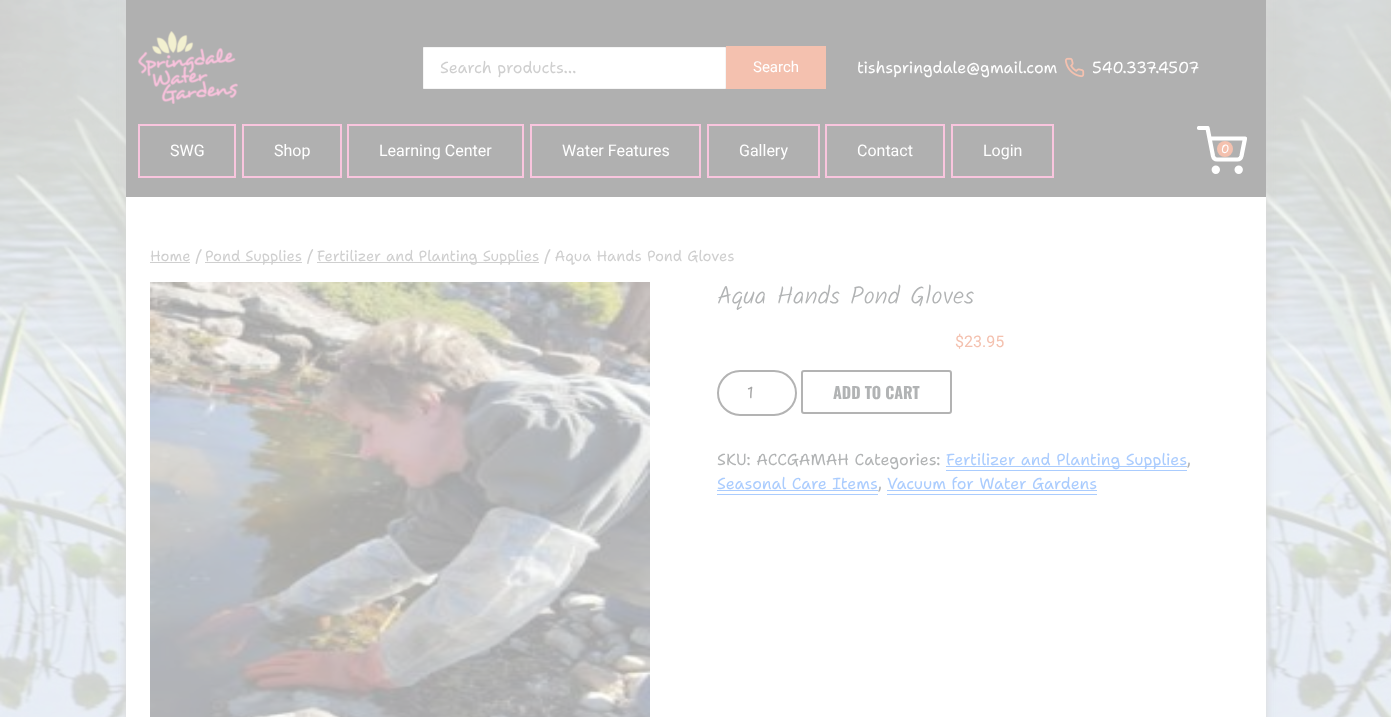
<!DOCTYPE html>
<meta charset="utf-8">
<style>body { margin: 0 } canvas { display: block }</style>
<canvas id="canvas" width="1391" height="717"></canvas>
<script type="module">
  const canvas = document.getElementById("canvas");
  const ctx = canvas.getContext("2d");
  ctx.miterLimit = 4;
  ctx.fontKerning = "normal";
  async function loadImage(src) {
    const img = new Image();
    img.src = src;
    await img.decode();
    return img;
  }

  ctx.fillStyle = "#ffffff";
  ctx.fillRect(0, 0, 1391, 717);
  ctx.drawImage(await loadImage("img1.png"), 0, 0, 1391, 717);
  ctx.fillStyle = "#d7d7d7";
  ctx.filter = "blur(4px)";
  ctx.beginPath();
  ctx.rect(126, -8, 1140, 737);
  ctx.fill();
  ctx.filter = "none";
  ctx.fillStyle = "#ffffff";
  ctx.fillRect(126, 197, 1140, 520);
  ctx.fillStyle = "#b0b0b0";
  ctx.fillRect(126, 0, 1140, 197);
  ctx.drawImage(await loadImage("img2.png"), 138, 31, 100, 73);
  ctx.fillStyle = "#ffffff";
  ctx.beginPath();
  ctx.rect(423.5, 47.5, 302, 41);
  ctx.fill();
  ctx.strokeStyle = "#f5f5f5";
  ctx.stroke();
  ctx.font = "16px Shantell Sans";
  ctx.fillStyle = "#cfcfcf";
  ctx.fillText("Search products…", 440, 73);
  ctx.fillStyle = "#f4c1af";
  ctx.fillRect(726, 46, 100, 43);
  ctx.font = "15px Roboto";
  ctx.fillStyle = "#ffffff";
  ctx.fillText("Search", 753, 72);
  ctx.font = "16px Shantell Sans";
  ctx.fillText("tishspringdale@gmail.com", 857, 73);
  ctx.drawImage(await loadImage("img3.png"), 1065, 57, 20, 21);
  ctx.fillText("540.337.4507", 1092, 73);
  ctx.strokeStyle = "#f9c5de";
  ctx.lineWidth = 2;
  ctx.strokeRect(139, 125, 96, 52);
  ctx.font = "16px Roboto";
  ctx.fillText("SWG", 170, 156);
  ctx.strokeRect(243, 125, 98, 52);
  ctx.fillText("Shop", 274, 156);
  ctx.strokeRect(348, 125, 175, 52);
  ctx.fillText("Learning Center", 379, 156);
  ctx.strokeRect(531, 125, 169, 52);
  ctx.fillText("Water Features", 562, 156);
  ctx.strokeRect(708, 125, 111, 52);
  ctx.fillText("Gallery", 739, 156);
  ctx.strokeRect(826, 125, 118, 52);
  ctx.fillText("Contact", 857, 156);
  ctx.strokeRect(952, 125, 101, 52);
  ctx.fillText("Login", 983, 156);
  ctx.beginPath();
  ctx.arc(1215.8, 169.8, 2.1, 0, Math.PI * 2);
  ctx.strokeStyle = "#ffffff";
  ctx.lineWidth = 4.2;
  ctx.stroke();
  ctx.beginPath();
  ctx.arc(1238.7, 169.8, 2.1, 0, Math.PI * 2);
  ctx.stroke();
  ctx.save();
  ctx.beginPath();
  ctx.rect(1197, 126, 50, 50);
  ctx.clip();
  ctx.beginPath();
  ctx.moveTo(1199, 128);
  ctx.lineTo(1207.5, 128);
  ctx.lineTo(1213, 156);
  ctx.bezierCurveTo(1213.5, 158, 1215, 159.5, 1217, 159.5);
  ctx.lineTo(1237.5, 159.5);
  ctx.bezierCurveTo(1239.5, 159.5, 1241, 158, 1241.5, 156);
  ctx.lineTo(1245, 138.5);
  ctx.lineTo(1209.5, 138.5);
  ctx.lineCap = "round";
  ctx.lineJoin = "round";
  ctx.stroke();
  ctx.restore();
  ctx.fillStyle = "#f4c1af";
  ctx.beginPath();
  ctx.arc(1225, 149, 8, 0, Math.PI * 2);
  ctx.fill();
  ctx.font = "12px Shantell Sans";
  ctx.fillStyle = "#ffffff";
  ctx.fillText("0", 1221, 153);
  ctx.fillStyle = "#cfcfcf";
  ctx.fillRect(150, 262, 40, 1);
  ctx.font = "14.75px Shantell Sans";
  ctx.fillText("Home /", 150, 261);
  ctx.fillRect(205, 262, 97, 1);
  ctx.fillText("Pond Supplies /", 205, 261);
  ctx.fillRect(317, 262, 222, 1);
  ctx.fillText("Fertilizer and Planting Supplies / Aqua Hands Pond Gloves", 317, 261);
  ctx.drawImage(await loadImage("img4.png"), 150, 282, 500, 435);
  ctx.font = "300 25px Kalam";
  ctx.fillStyle = "#b1b3b4";
  ctx.fillText("Aqua Hands Pond Gloves", 717, 304);
  ctx.font = "16px Roboto";
  ctx.fillStyle = "#f4c1af";
  ctx.fillText("$23.95", 955, 347);
  ctx.beginPath();
  ctx.roundRect(718, 371, 78, 44, 22);
  ctx.strokeStyle = "#b3b3b3";
  ctx.lineWidth = 2;
  ctx.stroke();
  ctx.font = "16px Shantell Sans";
  ctx.fillStyle = "#a6a6a6";
  ctx.fillText("1", 747, 398);
  ctx.beginPath();
  ctx.roundRect(802, 371, 149, 42, 2);
  ctx.stroke();
  ctx.font = "bold 16px Oswald";
  ctx.fillStyle = "#b1b3b4";
  ctx.fillText("ADD TO CART", 833, 399);
  ctx.font = "16px Shantell Sans";
  ctx.fillText("SKU: ACCGAMAH Categories:", 717, 465);
  ctx.fillStyle = "#aaccfe";
  ctx.fillRect(946, 466, 241, 1);
  ctx.fillText("Fertilizer and Planting Supplies", 946, 465);
  ctx.fillStyle = "#b1b3b4";
  ctx.fillText(",", 1187, 465);
  ctx.fillStyle = "#aaccfe";
  ctx.fillRect(946, 470, 241, 1);
  ctx.fillText("Seasonal Care Items", 717, 489);
  ctx.fillStyle = "#b1b3b4";
  ctx.fillText(",", 878, 489);
  ctx.fillStyle = "#aaccfe";
  ctx.fillRect(717, 494, 161, 1);
  ctx.fillRect(717, 490, 161, 1);
  ctx.fillRect(887, 494, 210, 1);
  ctx.fillRect(887, 490, 210, 1);
  ctx.fillText("Vacuum for Water Gardens", 887, 489);
</script>
